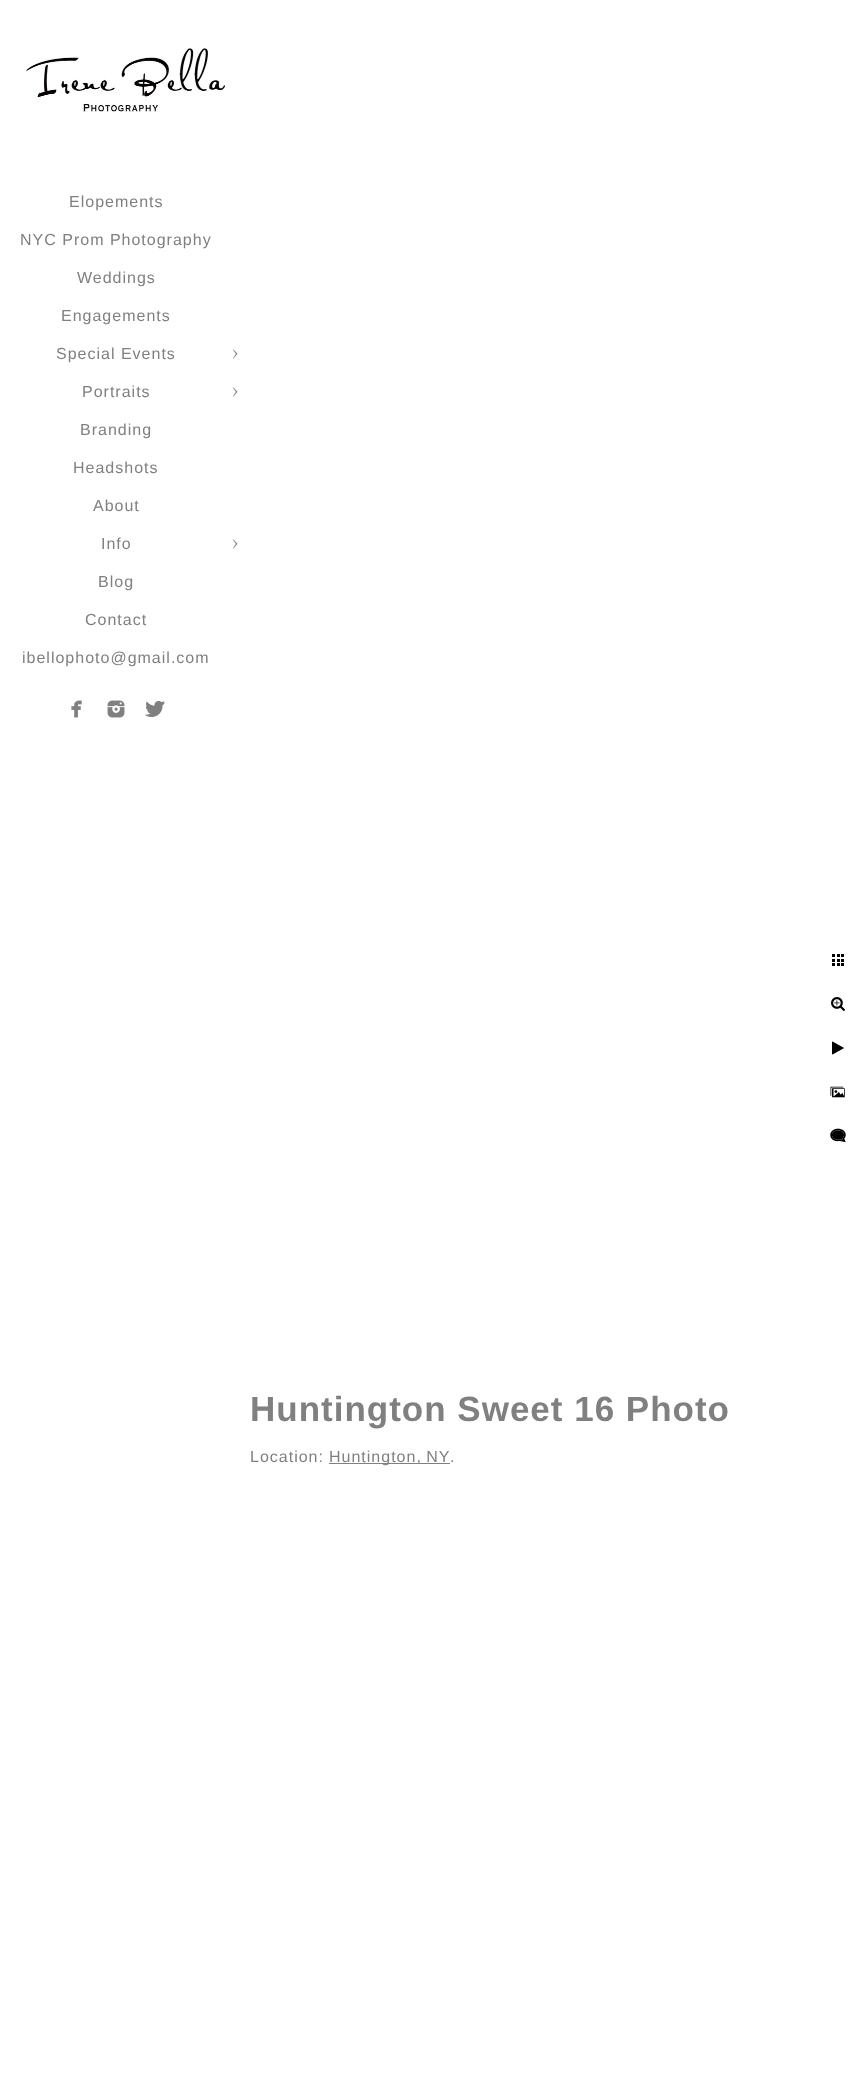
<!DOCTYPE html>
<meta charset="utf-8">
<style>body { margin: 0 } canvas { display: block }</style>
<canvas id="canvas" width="865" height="2076"></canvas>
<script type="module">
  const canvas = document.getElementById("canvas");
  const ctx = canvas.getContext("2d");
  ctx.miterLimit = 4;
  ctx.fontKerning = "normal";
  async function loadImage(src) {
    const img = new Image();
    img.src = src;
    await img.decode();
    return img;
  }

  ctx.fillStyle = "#ffffff";
  ctx.fillRect(0, 0, 865, 2076);
  ctx.drawImage(await loadImage("img1.png"), 26, 48, 199, 64);
  ctx.letterSpacing = "1px";
  ctx.font = "16px Liberation Sans";
  ctx.fillStyle = "#808080";
  ctx.fillText("Elopements", 69, 207);
  ctx.fillText("NYC Prom Photography", 20, 245);
  ctx.fillText("Weddings", 77, 283);
  ctx.fillText("Engagements", 61, 321);
  ctx.fillText("Special Events", 56, 359);
  ctx.drawImage(await loadImage("img2.png"), 232, 349, 6, 10);
  ctx.fillText("Portraits", 82, 397);
  ctx.drawImage(await loadImage("img2.png"), 232, 387, 6, 10);
  ctx.fillText("Branding", 80, 435);
  ctx.fillText("Headshots", 73, 473);
  ctx.fillText("About", 93, 511);
  ctx.fillText("Info", 101, 549);
  ctx.drawImage(await loadImage("img2.png"), 232, 539, 6, 10);
  ctx.fillText("Blog", 98, 587);
  ctx.fillText("Contact", 85, 625);
  ctx.fillText("ibellophoto@gmail.com", 22, 663);
  ctx.drawImage(await loadImage("img3.png"), 71, 700, 11, 18);
  ctx.drawImage(await loadImage("img4.png"), 107, 700, 18, 18);
  ctx.drawImage(await loadImage("img5.png"), 145, 701, 20, 16);
  ctx.drawImage(await loadImage("img6.png"), 832, 954, 12, 12);
  ctx.drawImage(await loadImage("img7.png"), 831, 997, 14, 14);
  ctx.drawImage(await loadImage("img8.png"), 832, 1041, 12, 14);
  ctx.drawImage(await loadImage("img9.png"), 830, 1086, 15, 12);
  ctx.drawImage(await loadImage("img10.png"), 830, 1128, 16, 15);
  ctx.font = "bold 35px Liberation Sans";
  ctx.fillText("Huntington Sweet 16 Photo", 250, 1421);
  ctx.font = "16px Liberation Sans";
  ctx.fillText("Location:", 250, 1462);
  ctx.fillRect(329, 1463, 121, 1);
  ctx.wordSpacing = "-1px";
  ctx.fillText("Huntington, NY", 329, 1462);
  ctx.wordSpacing = "0px";
  ctx.fillText(".", 450, 1462);
</script>
